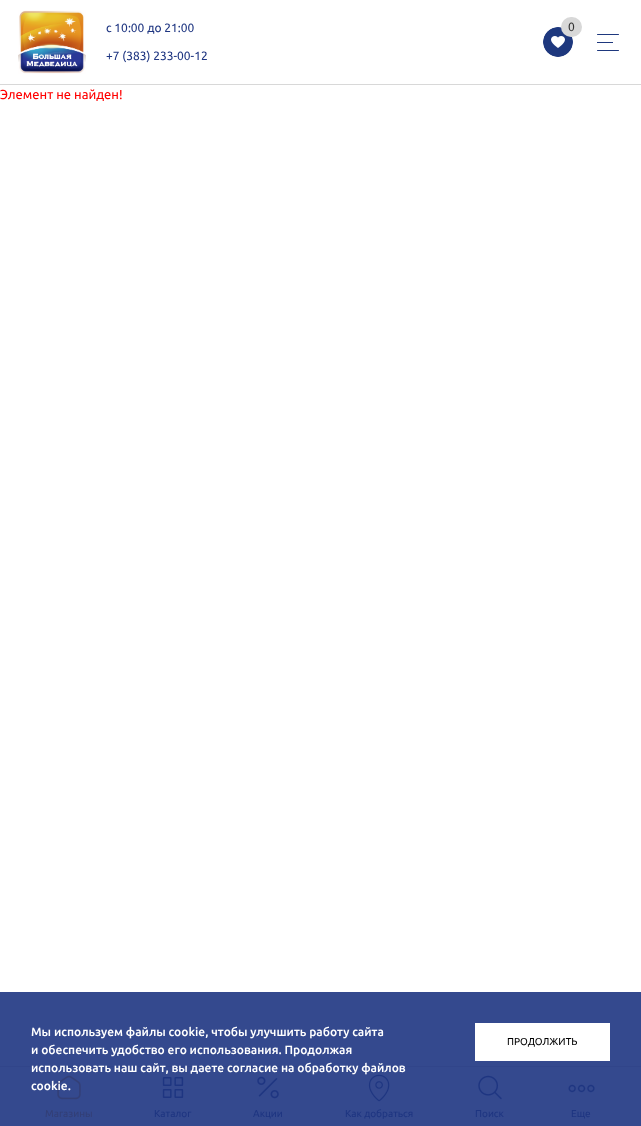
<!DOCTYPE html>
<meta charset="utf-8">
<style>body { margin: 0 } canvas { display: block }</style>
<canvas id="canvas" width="641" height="1126"></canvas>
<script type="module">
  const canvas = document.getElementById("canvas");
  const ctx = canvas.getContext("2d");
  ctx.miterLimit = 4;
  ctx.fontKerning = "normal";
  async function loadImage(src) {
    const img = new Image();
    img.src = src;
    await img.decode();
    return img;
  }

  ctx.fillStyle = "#ffffff";
  ctx.fillRect(0, 0, 641, 1126);
  ctx.fillStyle = "#34498e";
  ctx.fillRect(0, 992, 641, 134);
  ctx.fillStyle = "#d8d8d8";
  ctx.fillRect(0, 84, 641, 1);
  ctx.drawImage(await loadImage("img1.png"), 18, 10, 68, 64);
  ctx.font = "12px Ubuntu";
  ctx.fillStyle = "#1e3581";
  ctx.fillText("c 10:00 до 21:00", 106, 32);
  ctx.fillText("+7 (383) 233-00-12", 106, 60);
  ctx.drawImage(await loadImage("img2.png"), 543, 27, 30, 30);
  ctx.fillStyle = "#d8d8d8";
  ctx.beginPath();
  ctx.roundRect(561, 17, 21, 20, 10);
  ctx.fill();
  ctx.fillStyle = "#333333";
  ctx.fillText("0", 568, 31);
  ctx.fillStyle = "#1e387e";
  ctx.fillRect(597, 42, 16, 1);
  ctx.beginPath();
  ctx.roundRect(597, 34, 22, 1, 0.5);
  ctx.fill();
  ctx.beginPath();
  ctx.roundRect(597, 50, 22, 1, 0.5);
  ctx.fill();
  ctx.font = "13px Ubuntu";
  ctx.fillStyle = "#ff0000";
  ctx.fillText("Элемент не найден!", 0, 99);
  ctx.fillStyle = "#31458a";
  ctx.fillRect(0, 1066, 641, 1);
  ctx.drawImage(await loadImage("img3.png"), 57, 1075, 24, 25);
  ctx.font = "10px Ubuntu";
  ctx.fillStyle = "#333f76";
  ctx.fillText("Магазины", 45, 1117);
  ctx.drawImage(await loadImage("img4.png"), 162, 1077, 22, 21);
  ctx.fillStyle = "#1e3581";
  ctx.fillText("Каталог", 154, 1117);
  ctx.drawImage(await loadImage("img5.png"), 257, 1076, 22, 23);
  ctx.fillText("Акции", 253, 1117);
  ctx.drawImage(await loadImage("img6.png"), 368, 1074, 22, 28);
  ctx.fillText("Как добраться", 345, 1117);
  ctx.drawImage(await loadImage("img7.png"), 478, 1075, 24, 25);
  ctx.fillText("Поиск", 475, 1117);
  ctx.drawImage(await loadImage("img8.png"), 568, 1084, 27, 9);
  ctx.fillText("Еще", 571, 1117);
  ctx.font = "500 12px Ubuntu";
  ctx.fillStyle = "#ffffff";
  ctx.fillText("Мы используем файлы cookie, чтобы улучшить работу сайта", 31, 1036);
  ctx.fillText("и обеспечить удобство его использования. Продолжая", 31, 1054);
  ctx.fillText("использовать наш сайт, вы даете согласие на обработку файлов", 31, 1072);
  ctx.fillText("cookie.", 31, 1090);
  ctx.fillRect(475, 1023, 135, 38);
  ctx.font = "10px Ubuntu";
  ctx.fillStyle = "#000000";
  ctx.fillText("ПРОДОЛЖИТЬ", 507, 1045);
</script>
